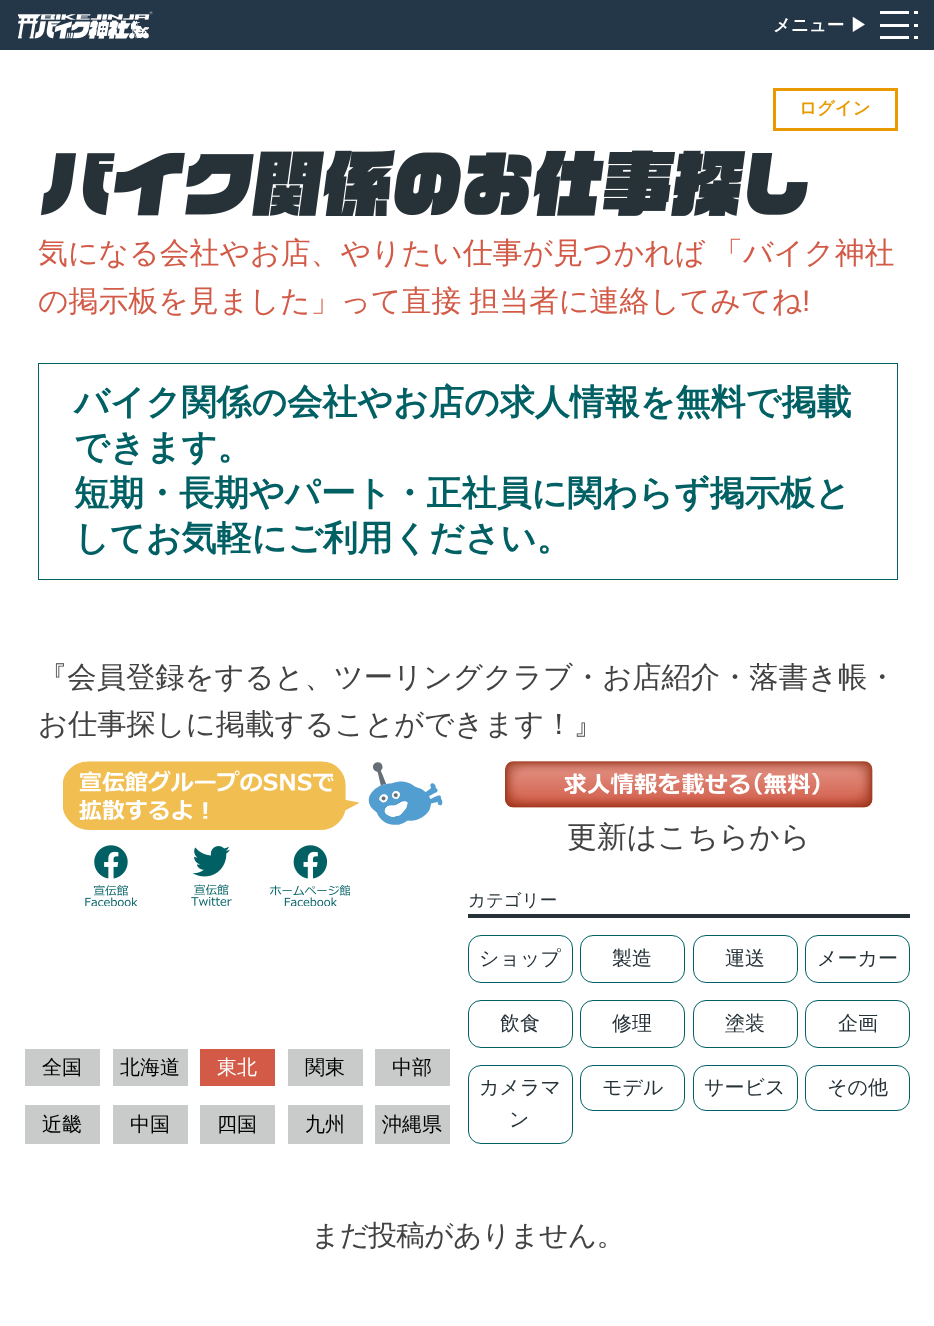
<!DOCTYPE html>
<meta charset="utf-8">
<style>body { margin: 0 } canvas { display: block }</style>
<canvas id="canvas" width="934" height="1326"></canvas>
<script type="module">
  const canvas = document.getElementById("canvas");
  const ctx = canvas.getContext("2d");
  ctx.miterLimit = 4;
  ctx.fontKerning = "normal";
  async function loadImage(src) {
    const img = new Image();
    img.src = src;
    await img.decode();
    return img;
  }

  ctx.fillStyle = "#ffffff";
  ctx.fillRect(0, 0, 934, 1326);
  ctx.fillStyle = "#243749";
  ctx.fillRect(0, 0, 934, 50);
  ctx.drawImage(await loadImage("img1.png"), 18, 11, 135, 28);
  ctx.font = "bold 17.5px WenQuanYi Zen Hei";
  ctx.fillStyle = "#ffffff";
  ctx.fillText("メニュー", 773, 31);
  ctx.fillText("▶︎", 850, 31);
  ctx.fillRect(880, 11, 29, 3);
  ctx.fillRect(914, 11, 4, 3);
  ctx.fillRect(880, 24, 29, 3);
  ctx.fillRect(914, 24, 4, 3);
  ctx.fillRect(880, 36, 29, 3);
  ctx.fillRect(914, 36, 4, 3);
  ctx.strokeStyle = "#ea9900";
  ctx.lineWidth = 3;
  ctx.strokeRect(774.5, 89.5, 122, 40);
  ctx.fillStyle = "#ea9900";
  ctx.fillText("ログイン", 799, 114);
  ctx.drawImage(await loadImage("img2.png"), 41, 150, 767, 66);
  ctx.font = "500 29.9px WenQuanYi Zen Hei";
  ctx.fillStyle = "#d25a46";
  ctx.fillText("気になる会社やお店、やりたい仕事が見つかれば", 38, 263);
  ctx.fillText("「バイク神社", 713, 263);
  ctx.wordSpacing = "-1px";
  ctx.fillText("の掲示板を見ました」って直接 担当者に連絡してみてね", 38, 311);
  ctx.wordSpacing = "0px";
  ctx.font = "29.9px Liberation Sans";
  ctx.fillText("!", 802, 311);
  ctx.strokeStyle = "#006064";
  ctx.lineWidth = 1;
  ctx.strokeRect(38.5, 363.5, 859, 216);
  ctx.font = "bold 35px WenQuanYi Zen Hei";
  ctx.fillStyle = "#006064";
  ctx.fillText("バイク関係の会社やお店の求人情報を無料で掲載", 74, 414);
  ctx.fillText("できます。", 74, 459);
  ctx.fillText("短期・長期やパート・正社員に関わらず掲示板と", 74, 505);
  ctx.fillText("してお気軽にご利用ください。", 74, 550);
  ctx.font = "500 29.3px WenQuanYi Zen Hei";
  ctx.fillStyle = "#424242";
  ctx.fillText("『会員登録をすると、ツーリングクラブ・お店紹介・落書き帳・", 38, 687);
  ctx.fillText("お仕事探しに掲載することができます！』", 38, 734);
  ctx.drawImage(await loadImage("img3.png"), 63, 761, 380, 69);
  ctx.drawImage(await loadImage("img4.png"), 85, 845, 53, 61);
  ctx.drawImage(await loadImage("img5.png"), 191, 846, 41, 60);
  ctx.drawImage(await loadImage("img6.png"), 270, 845, 80, 61);
  ctx.drawImage(await loadImage("img7.png"), 505, 761, 368, 47);
  ctx.font = "500 29.9px WenQuanYi Zen Hei";
  ctx.fillText("更新はこちらから", 567, 847);
  ctx.fillStyle = "#c9caca";
  ctx.fillRect(25, 1049, 75, 37);
  ctx.font = "500 20px WenQuanYi Zen Hei";
  ctx.fillStyle = "#000000";
  ctx.fillText("全国", 42, 1074);
  ctx.fillStyle = "#c9caca";
  ctx.fillRect(113, 1049, 75, 37);
  ctx.fillStyle = "#000000";
  ctx.fillText("北海道", 120, 1074);
  ctx.fillStyle = "#d25a46";
  ctx.fillRect(200, 1049, 75, 37);
  ctx.fillStyle = "#ffffff";
  ctx.fillText("東北", 217, 1074);
  ctx.fillStyle = "#c9caca";
  ctx.fillRect(288, 1049, 75, 37);
  ctx.fillStyle = "#000000";
  ctx.fillText("関東", 305, 1074);
  ctx.fillStyle = "#c9caca";
  ctx.fillRect(375, 1049, 75, 37);
  ctx.fillStyle = "#000000";
  ctx.fillText("中部", 392, 1074);
  ctx.fillStyle = "#c9caca";
  ctx.fillRect(25, 1105, 75, 39);
  ctx.fillStyle = "#000000";
  ctx.fillText("近畿", 42, 1131);
  ctx.fillStyle = "#c9caca";
  ctx.fillRect(113, 1105, 75, 39);
  ctx.fillStyle = "#000000";
  ctx.fillText("中国", 130, 1131);
  ctx.fillStyle = "#c9caca";
  ctx.fillRect(200, 1105, 75, 39);
  ctx.fillStyle = "#000000";
  ctx.fillText("四国", 217, 1131);
  ctx.fillStyle = "#c9caca";
  ctx.fillRect(288, 1105, 75, 39);
  ctx.fillStyle = "#000000";
  ctx.fillText("九州", 305, 1131);
  ctx.fillStyle = "#c9caca";
  ctx.fillRect(375, 1105, 75, 39);
  ctx.fillStyle = "#000000";
  ctx.fillText("沖縄県", 382, 1131);
  ctx.fillStyle = "#263238";
  ctx.fillRect(468, 914, 442, 4);
  ctx.font = "500 17.5px WenQuanYi Zen Hei";
  ctx.fillText("カテゴリー", 468, 906);
  ctx.beginPath();
  ctx.roundRect(468.5, 935.5, 104, 47, 12.5);
  ctx.stroke();
  ctx.font = "500 20px WenQuanYi Zen Hei";
  ctx.fillText("ショップ", 479, 965);
  ctx.beginPath();
  ctx.roundRect(580.5, 935.5, 104, 47, 12.5);
  ctx.stroke();
  ctx.fillText("製造", 612, 965);
  ctx.beginPath();
  ctx.roundRect(693.5, 935.5, 104, 47, 12.5);
  ctx.stroke();
  ctx.fillText("運送", 725, 965);
  ctx.beginPath();
  ctx.roundRect(805.5, 935.5, 104, 47, 12.5);
  ctx.stroke();
  ctx.fillText("メーカー", 817, 965);
  ctx.beginPath();
  ctx.roundRect(468.5, 1000.5, 104, 47, 12.5);
  ctx.stroke();
  ctx.fillText("飲食", 500, 1030);
  ctx.beginPath();
  ctx.roundRect(580.5, 1000.5, 104, 47, 12.5);
  ctx.stroke();
  ctx.fillText("修理", 612, 1030);
  ctx.beginPath();
  ctx.roundRect(693.5, 1000.5, 104, 47, 12.5);
  ctx.stroke();
  ctx.fillText("塗装", 725, 1030);
  ctx.beginPath();
  ctx.roundRect(805.5, 1000.5, 104, 47, 12.5);
  ctx.stroke();
  ctx.fillText("企画", 838, 1030);
  ctx.beginPath();
  ctx.roundRect(468.5, 1065.5, 104, 78, 12.5);
  ctx.stroke();
  ctx.fillText("カメラマ", 479, 1094);
  ctx.fillText("ン", 509, 1126);
  ctx.beginPath();
  ctx.roundRect(580.5, 1065.5, 104, 45, 12.5);
  ctx.stroke();
  ctx.fillText("モデル", 602, 1094);
  ctx.beginPath();
  ctx.roundRect(693.5, 1065.5, 104, 45, 12.5);
  ctx.stroke();
  ctx.fillText("サービス", 704, 1094);
  ctx.beginPath();
  ctx.roundRect(805.5, 1065.5, 104, 45, 12.5);
  ctx.stroke();
  ctx.fillText("その他", 827, 1094);
  ctx.letterSpacing = "-0.75px";
  ctx.font = "500 28.75px WenQuanYi Zen Hei";
  ctx.fillStyle = "#424242";
  ctx.fillText("まだ投稿がありません。", 311, 1245);
</script>
